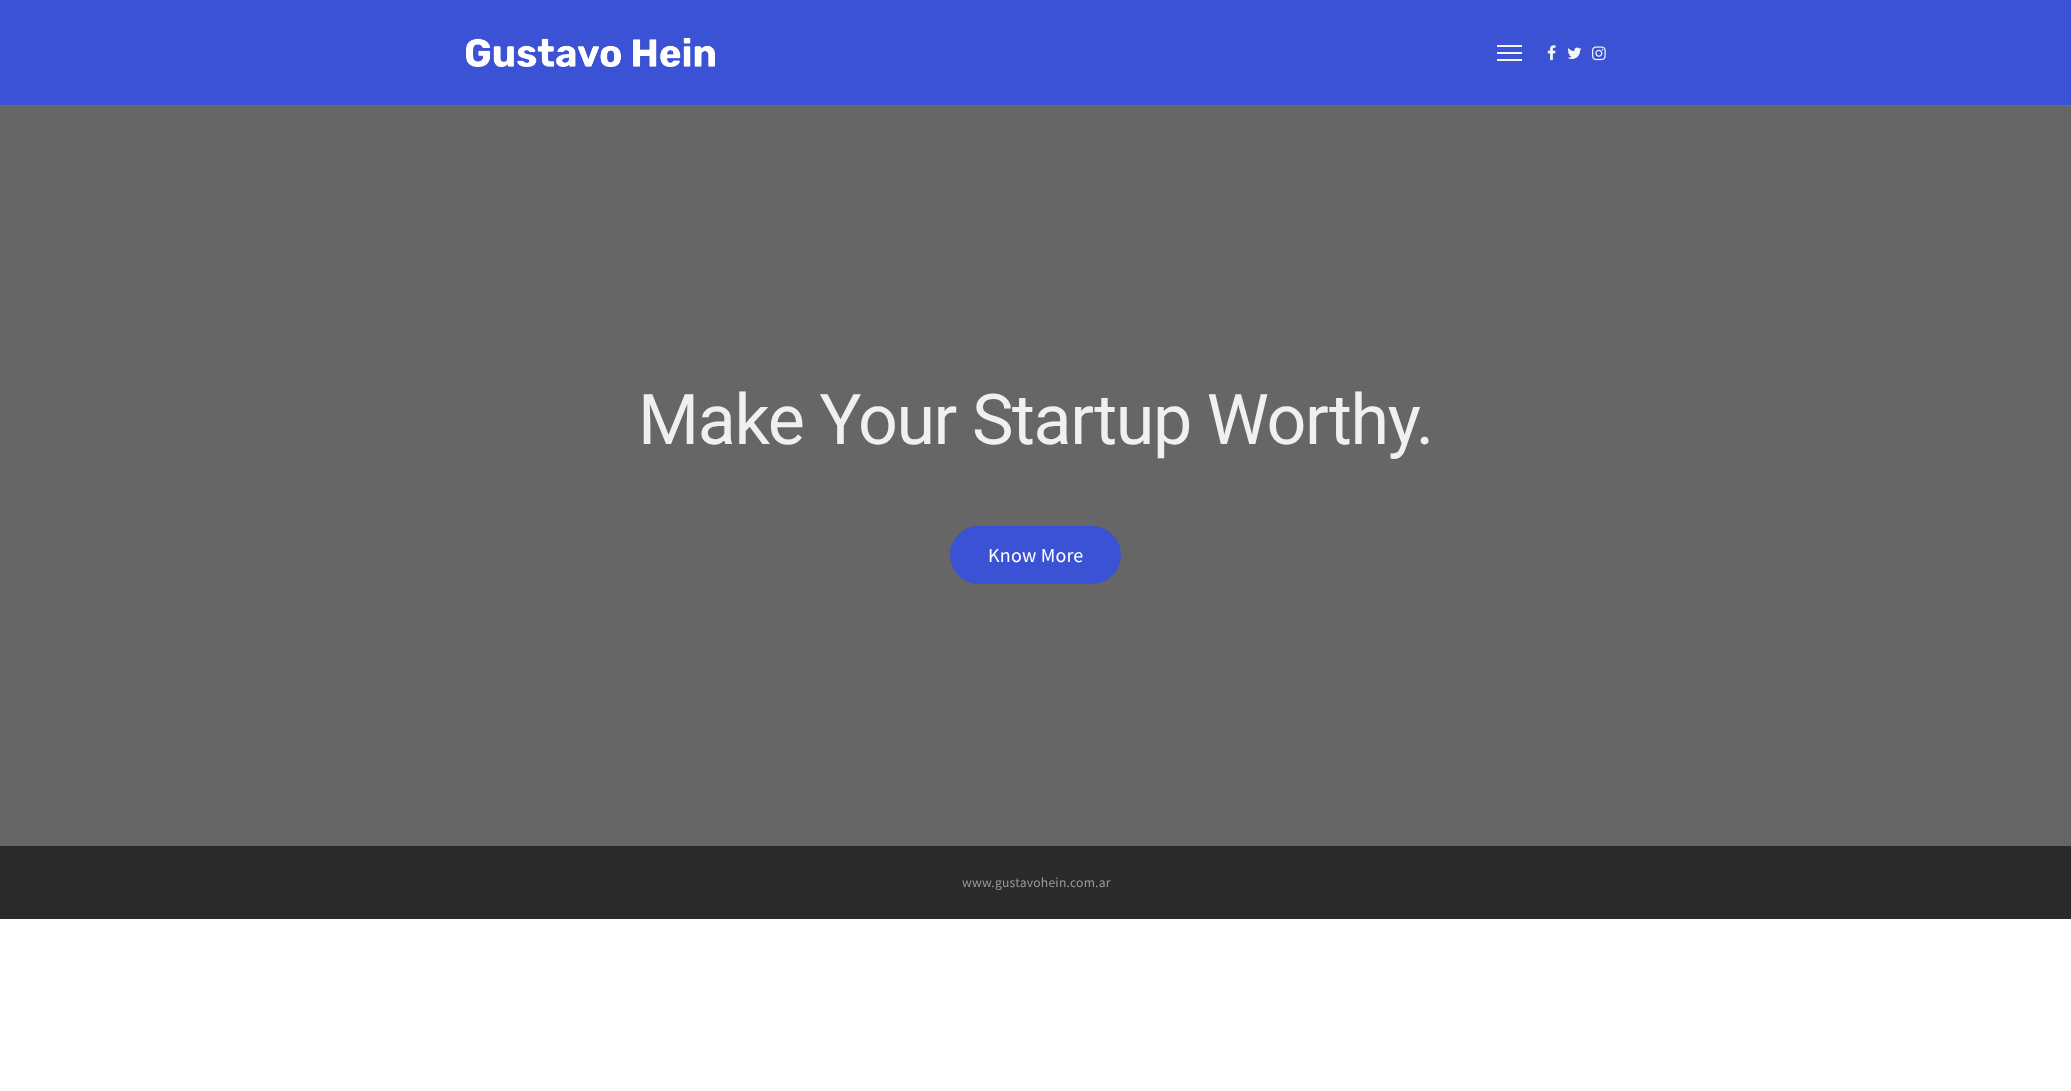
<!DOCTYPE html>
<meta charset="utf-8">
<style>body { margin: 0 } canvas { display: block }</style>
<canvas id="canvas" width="2071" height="1091"></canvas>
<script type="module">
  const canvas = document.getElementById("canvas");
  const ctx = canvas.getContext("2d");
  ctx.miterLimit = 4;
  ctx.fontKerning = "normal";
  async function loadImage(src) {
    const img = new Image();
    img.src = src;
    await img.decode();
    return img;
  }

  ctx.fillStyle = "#ffffff";
  ctx.fillRect(0, 0, 2071, 1091);
  ctx.fillStyle = "#3b52d5";
  ctx.fillRect(0, 0, 2071, 105);
  ctx.fillStyle = "#5668d2";
  ctx.fillRect(0, 105, 2071, 1);
  ctx.drawImage(await loadImage("img1.png"), 466, 38, 249, 29);
  ctx.fillStyle = "#f6f6f6";
  ctx.fillRect(1497, 52, 25, 2);
  ctx.fillRect(1497, 45, 25, 2);
  ctx.fillRect(1497, 59, 25, 2);
  ctx.drawImage(await loadImage("img2.png"), 1547, 45, 9, 16);
  ctx.drawImage(await loadImage("img3.png"), 1567, 47, 15, 12);
  ctx.drawImage(await loadImage("img4.png"), 1592, 46, 14, 15);
  ctx.fillStyle = "#666666";
  ctx.fillRect(0, 106, 2071, 740);
  ctx.letterSpacing = "-1.4px";
  ctx.font = "70px Roboto";
  ctx.fillStyle = "#f0f0f0";
  ctx.fillText("Make Your Startup Worthy.", 638, 444);
  ctx.fillStyle = "#3b52d5";
  ctx.beginPath();
  ctx.roundRect(951, 527, 169, 56, 28);
  ctx.fill();
  ctx.strokeStyle = "#3b52d5";
  ctx.lineWidth = 2;
  ctx.stroke();
  ctx.letterSpacing = "0.2px";
  ctx.font = "20px Source Sans Pro";
  ctx.fillStyle = "#ffffff";
  ctx.fillText("Know More", 988, 562);
  ctx.fillStyle = "#2a2a2a";
  ctx.fillRect(0, 846, 2071, 73);
  ctx.font = "13.6px Source Sans Pro";
  ctx.fillStyle = "#999999";
  ctx.fillText("www.gustavohein.com.ar", 962, 887);
</script>
